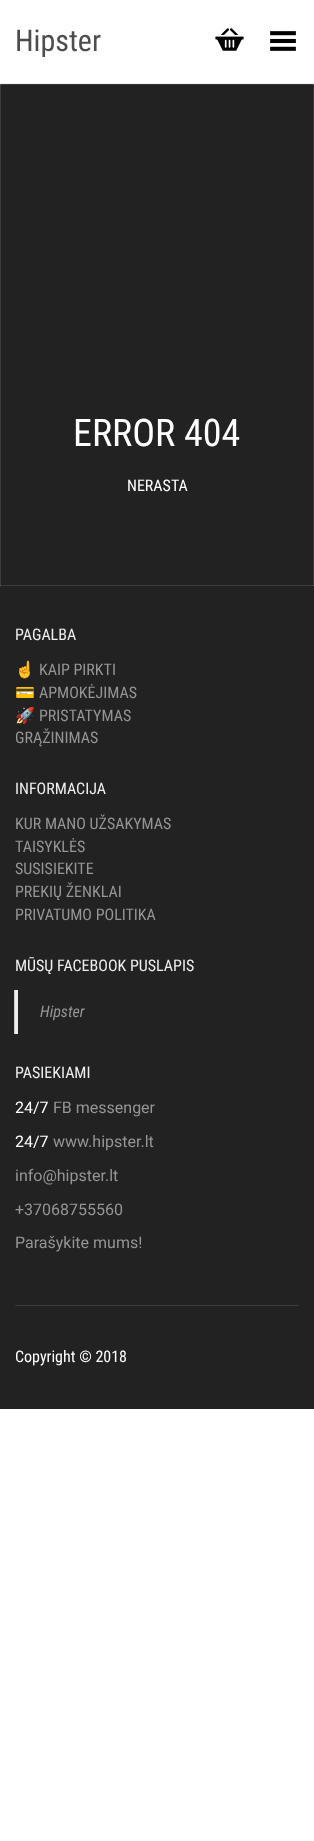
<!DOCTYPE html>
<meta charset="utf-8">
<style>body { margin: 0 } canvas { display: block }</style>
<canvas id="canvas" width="314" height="1841"></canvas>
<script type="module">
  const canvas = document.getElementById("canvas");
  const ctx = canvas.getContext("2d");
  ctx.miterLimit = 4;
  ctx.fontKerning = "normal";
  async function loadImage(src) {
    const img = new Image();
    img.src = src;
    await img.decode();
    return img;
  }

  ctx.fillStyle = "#ffffff";
  ctx.fillRect(0, 0, 314, 1841);
  ctx.fillStyle = "#eeeeee";
  ctx.fillRect(0, 83, 314, 1);
  ctx.font = "30px Roboto Condensed";
  ctx.fillStyle = "#4d4d4d";
  ctx.fillText("Hipster", 15, 51);
  ctx.drawImage(await loadImage("img1.png"), 215, 28, 29, 23);
  ctx.drawImage(await loadImage("img2.png"), 270, 31, 26, 20);
  ctx.fillStyle = "#222222";
  ctx.beginPath();
  ctx.rect(0.5, 84.5, 313, 501);
  ctx.fill();
  ctx.strokeStyle = "#3a3a3a";
  ctx.stroke();
  ctx.font = "38px Roboto Condensed";
  ctx.fillStyle = "#ffffff";
  ctx.fillText("ERROR 404", 73, 446);
  ctx.font = "16px Roboto Condensed";
  ctx.fillText("NERASTA", 127, 491);
  ctx.fillStyle = "#222222";
  ctx.fillRect(0, 586, 314, 823);
  ctx.fillStyle = "#eeeeee";
  ctx.fillText("PAGALBA", 15, 640);
  ctx.font = "16px Noto Color Emoji";
  ctx.fillStyle = "#959595";
  ctx.fillText("☝️", 15, 675);
  ctx.font = "16px Roboto Condensed";
  ctx.fillText("KAIP PIRKTI", 39, 675);
  ctx.font = "16px Noto Color Emoji";
  ctx.fillText("💳", 15, 698);
  ctx.font = "16px Roboto Condensed";
  ctx.fillText("APMOKĖJIMAS", 39, 698);
  ctx.font = "16px Noto Color Emoji";
  ctx.fillText("🚀", 15, 721);
  ctx.font = "16px Roboto Condensed";
  ctx.fillText("PRISTATYMAS", 39, 721);
  ctx.fillText("GRĄŽINIMAS", 15, 743);
  ctx.fillStyle = "#eeeeee";
  ctx.fillText("INFORMACIJA", 15, 794);
  ctx.fillStyle = "#959595";
  ctx.fillText("KUR MANO UŽSAKYMAS", 15, 829);
  ctx.fillText("TAISYKLĖS", 15, 852);
  ctx.fillText("SUSISIEKITE", 15, 874);
  ctx.fillText("PREKIŲ ŽENKLAI", 15, 897);
  ctx.fillText("PRIVATUMO POLITIKA", 15, 920);
  ctx.fillStyle = "#eeeeee";
  ctx.fillText("MŪSŲ FACEBOOK PUSLAPIS", 15, 971);
  ctx.fillStyle = "#cccccc";
  ctx.fillRect(14, 990, 1, 44);
  ctx.fillStyle = "#eeeeee";
  ctx.fillRect(15, 990, 3, 44);
  ctx.font = "italic 16px Roboto Condensed";
  ctx.fillStyle = "#959595";
  ctx.fillText("Hipster", 40, 1017);
  ctx.font = "16px Roboto Condensed";
  ctx.fillStyle = "#eeeeee";
  ctx.fillText("PASIEKIAMI", 15, 1078);
  ctx.font = "16px Roboto";
  ctx.fillStyle = "#ffffff";
  ctx.fillText("24/7", 15, 1113);
  ctx.fillStyle = "#959595";
  ctx.fillText("FB messenger", 53, 1113);
  ctx.fillStyle = "#ffffff";
  ctx.fillText("24/7", 15, 1147);
  ctx.fillStyle = "#959595";
  ctx.fillText("www.hipster.lt", 53, 1147);
  ctx.fillText("info@hipster.lt", 15, 1181);
  ctx.fillText("+37068755560", 15, 1215);
  ctx.fillText("Parašykite mums!", 15, 1248);
  ctx.fillStyle = "#3a3a3a";
  ctx.fillRect(15, 1305, 284, 1);
  ctx.font = "16px Roboto Condensed";
  ctx.fillStyle = "#ffffff";
  ctx.fillText("Copyright © 2018", 15, 1362);
</script>
